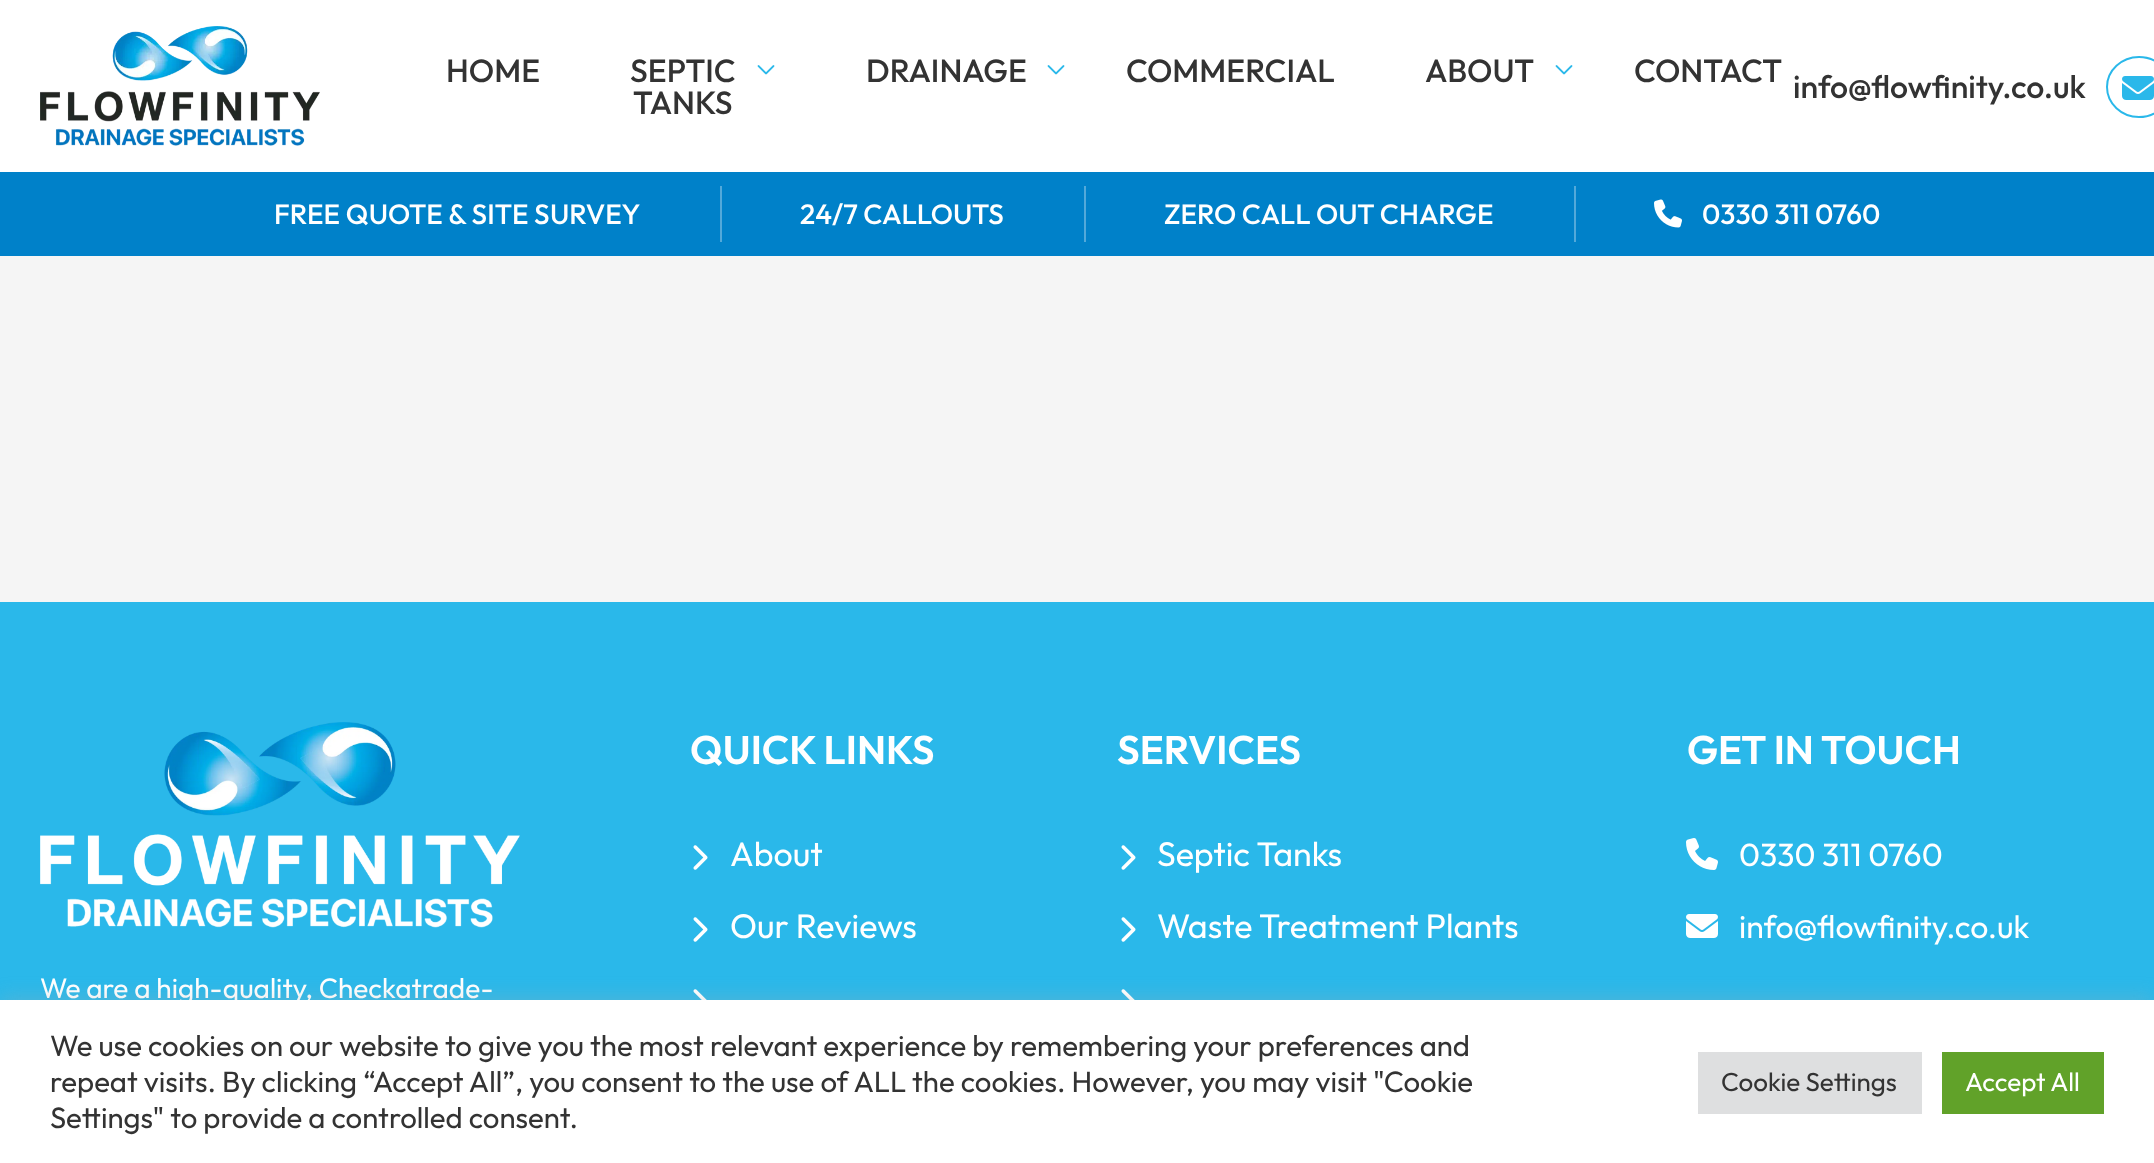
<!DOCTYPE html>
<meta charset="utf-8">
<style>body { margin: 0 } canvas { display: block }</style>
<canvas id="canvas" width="2154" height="1163"></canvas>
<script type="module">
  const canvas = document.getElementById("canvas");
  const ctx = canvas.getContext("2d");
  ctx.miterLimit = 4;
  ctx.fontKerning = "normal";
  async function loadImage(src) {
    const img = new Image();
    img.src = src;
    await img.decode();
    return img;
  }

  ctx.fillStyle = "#2ab8ea";
  ctx.fillRect(0, 0, 2154, 1163);
  ctx.fillStyle = "#ffffff";
  ctx.fillRect(0, 0, 2154, 172);
  ctx.drawImage(await loadImage("img1.png"), 40, 26, 280, 120);
  ctx.font = "500 32px Outfit";
  ctx.fillStyle = "#333333";
  ctx.fillText("HOME", 446, 82);
  ctx.fillText("SEPTIC", 630, 82);
  ctx.fillText("TANKS", 633, 114);
  ctx.drawImage(await loadImage("img2.png"), 757, 65, 18, 10);
  ctx.fillText("DRAINAGE", 866, 82);
  ctx.drawImage(await loadImage("img2.png"), 1047, 65, 18, 10);
  ctx.fillText("COMMERCIAL", 1126, 82);
  ctx.fillText("ABOUT", 1425, 82);
  ctx.drawImage(await loadImage("img2.png"), 1555, 65, 18, 10);
  ctx.fillText("CONTACT", 1634, 82);
  ctx.fillText("info@flowfinity.co.uk", 1793, 98);
  ctx.beginPath();
  ctx.moveTo(2139, 57);
  ctx.bezierCurveTo(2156.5, 57, 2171, 70.5, 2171, 87);
  ctx.bezierCurveTo(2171, 103.5, 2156.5, 117, 2139, 117);
  ctx.bezierCurveTo(2121.5, 117, 2107, 103.5, 2107, 87);
  ctx.bezierCurveTo(2107, 70.5, 2121.5, 57, 2139, 57);
  ctx.closePath();
  ctx.strokeStyle = "#2ab8ea";
  ctx.lineWidth = 2;
  ctx.stroke();
  ctx.drawImage(await loadImage("img3.png"), 2122, 76, 32, 24);
  ctx.fillStyle = "#0081c9";
  ctx.fillRect(0, 172, 2154, 84);
  ctx.font = "500 28px Outfit";
  ctx.fillStyle = "#ffffff";
  ctx.fillText("FREE QUOTE & SITE SURVEY", 274, 224);
  ctx.fillStyle = "#52a9da";
  ctx.fillRect(720, 186, 2, 56);
  ctx.fillStyle = "#ffffff";
  ctx.fillText("24/7 CALLOUTS", 800, 224);
  ctx.fillStyle = "#52a9da";
  ctx.fillRect(1084, 186, 2, 56);
  ctx.fillStyle = "#ffffff";
  ctx.fillText("ZERO CALL OUT CHARGE", 1164, 224);
  ctx.fillStyle = "#52a9da";
  ctx.fillRect(1574, 186, 2, 56);
  ctx.drawImage(await loadImage("img4.png"), 1654, 199, 28, 29);
  ctx.fillStyle = "#ffffff";
  ctx.fillText("0330 311 0760", 1702, 224);
  ctx.fillStyle = "#f5f5f5";
  ctx.fillRect(0, 256, 2154, 346);
  ctx.font = "600 40px Outfit";
  ctx.fillStyle = "#ffffff";
  ctx.fillText("QUICK LINKS", 690, 764);
  ctx.drawImage(await loadImage("img5.png"), 693, 845, 15, 25);
  ctx.font = "34px Outfit";
  ctx.fillText("About", 730, 866);
  ctx.drawImage(await loadImage("img5.png"), 693, 917, 15, 25);
  ctx.fillText("Our Reviews", 730, 938);
  ctx.drawImage(await loadImage("img6.png"), 693, 989, 14, 11);
  ctx.font = "600 40px Outfit";
  ctx.fillText("SERVICES", 1117, 764);
  ctx.drawImage(await loadImage("img5.png"), 1121, 845, 15, 25);
  ctx.font = "34px Outfit";
  ctx.fillText("Septic Tanks", 1157, 866);
  ctx.drawImage(await loadImage("img5.png"), 1121, 917, 15, 25);
  ctx.fillText("Waste Treatment Plants", 1157, 938);
  ctx.drawImage(await loadImage("img6.png"), 1121, 989, 14, 11);
  ctx.font = "600 40px Outfit";
  ctx.fillText("GET IN TOUCH", 1687, 764);
  ctx.drawImage(await loadImage("img7.png"), 1686, 838, 32, 32);
  ctx.font = "32px Outfit";
  ctx.fillText("0330 311 0760", 1739, 866);
  ctx.drawImage(await loadImage("img8.png"), 1686, 914, 32, 24);
  ctx.fillText("info@flowfinity.co.uk", 1739, 938);
  ctx.drawImage(await loadImage("img9.png"), 40, 722, 480, 206);
  ctx.font = "28px Outfit";
  ctx.fillText("We are a high-quality, Checkatrade-", 40, 998);
  ctx.fillStyle = "rgba(172, 171, 171, 0.3)";
  ctx.filter = "blur(10px)";
  ctx.beginPath();
  ctx.rect(0, 998, 2154, 164);
  ctx.fill();
  ctx.filter = "none";
  ctx.fillStyle = "#ffffff";
  ctx.fillRect(0, 1000, 2154, 163);
  ctx.font = "29.35px Outfit";
  ctx.fillStyle = "#333333";
  ctx.fillText("We use cookies on our website to give you the most relevant experience by remembering your preferences and", 50, 1056);
  ctx.fillText("repeat visits. By clicking “Accept All”, you consent to the use of ALL the cookies. However, you may visit \"Cookie", 50, 1092);
  ctx.fillText("Settings\" to provide a controlled consent.", 50, 1128);
  ctx.fillStyle = "#dedfe0";
  ctx.fillRect(1698, 1052, 224, 62);
  ctx.font = "26px Outfit";
  ctx.fillStyle = "#333333";
  ctx.fillText("Cookie Settings", 1721, 1091);
  ctx.fillStyle = "#61a229";
  ctx.fillRect(1942, 1052, 162, 62);
  ctx.fillStyle = "#ffffff";
  ctx.fillText("Accept All", 1965, 1091);
</script>
